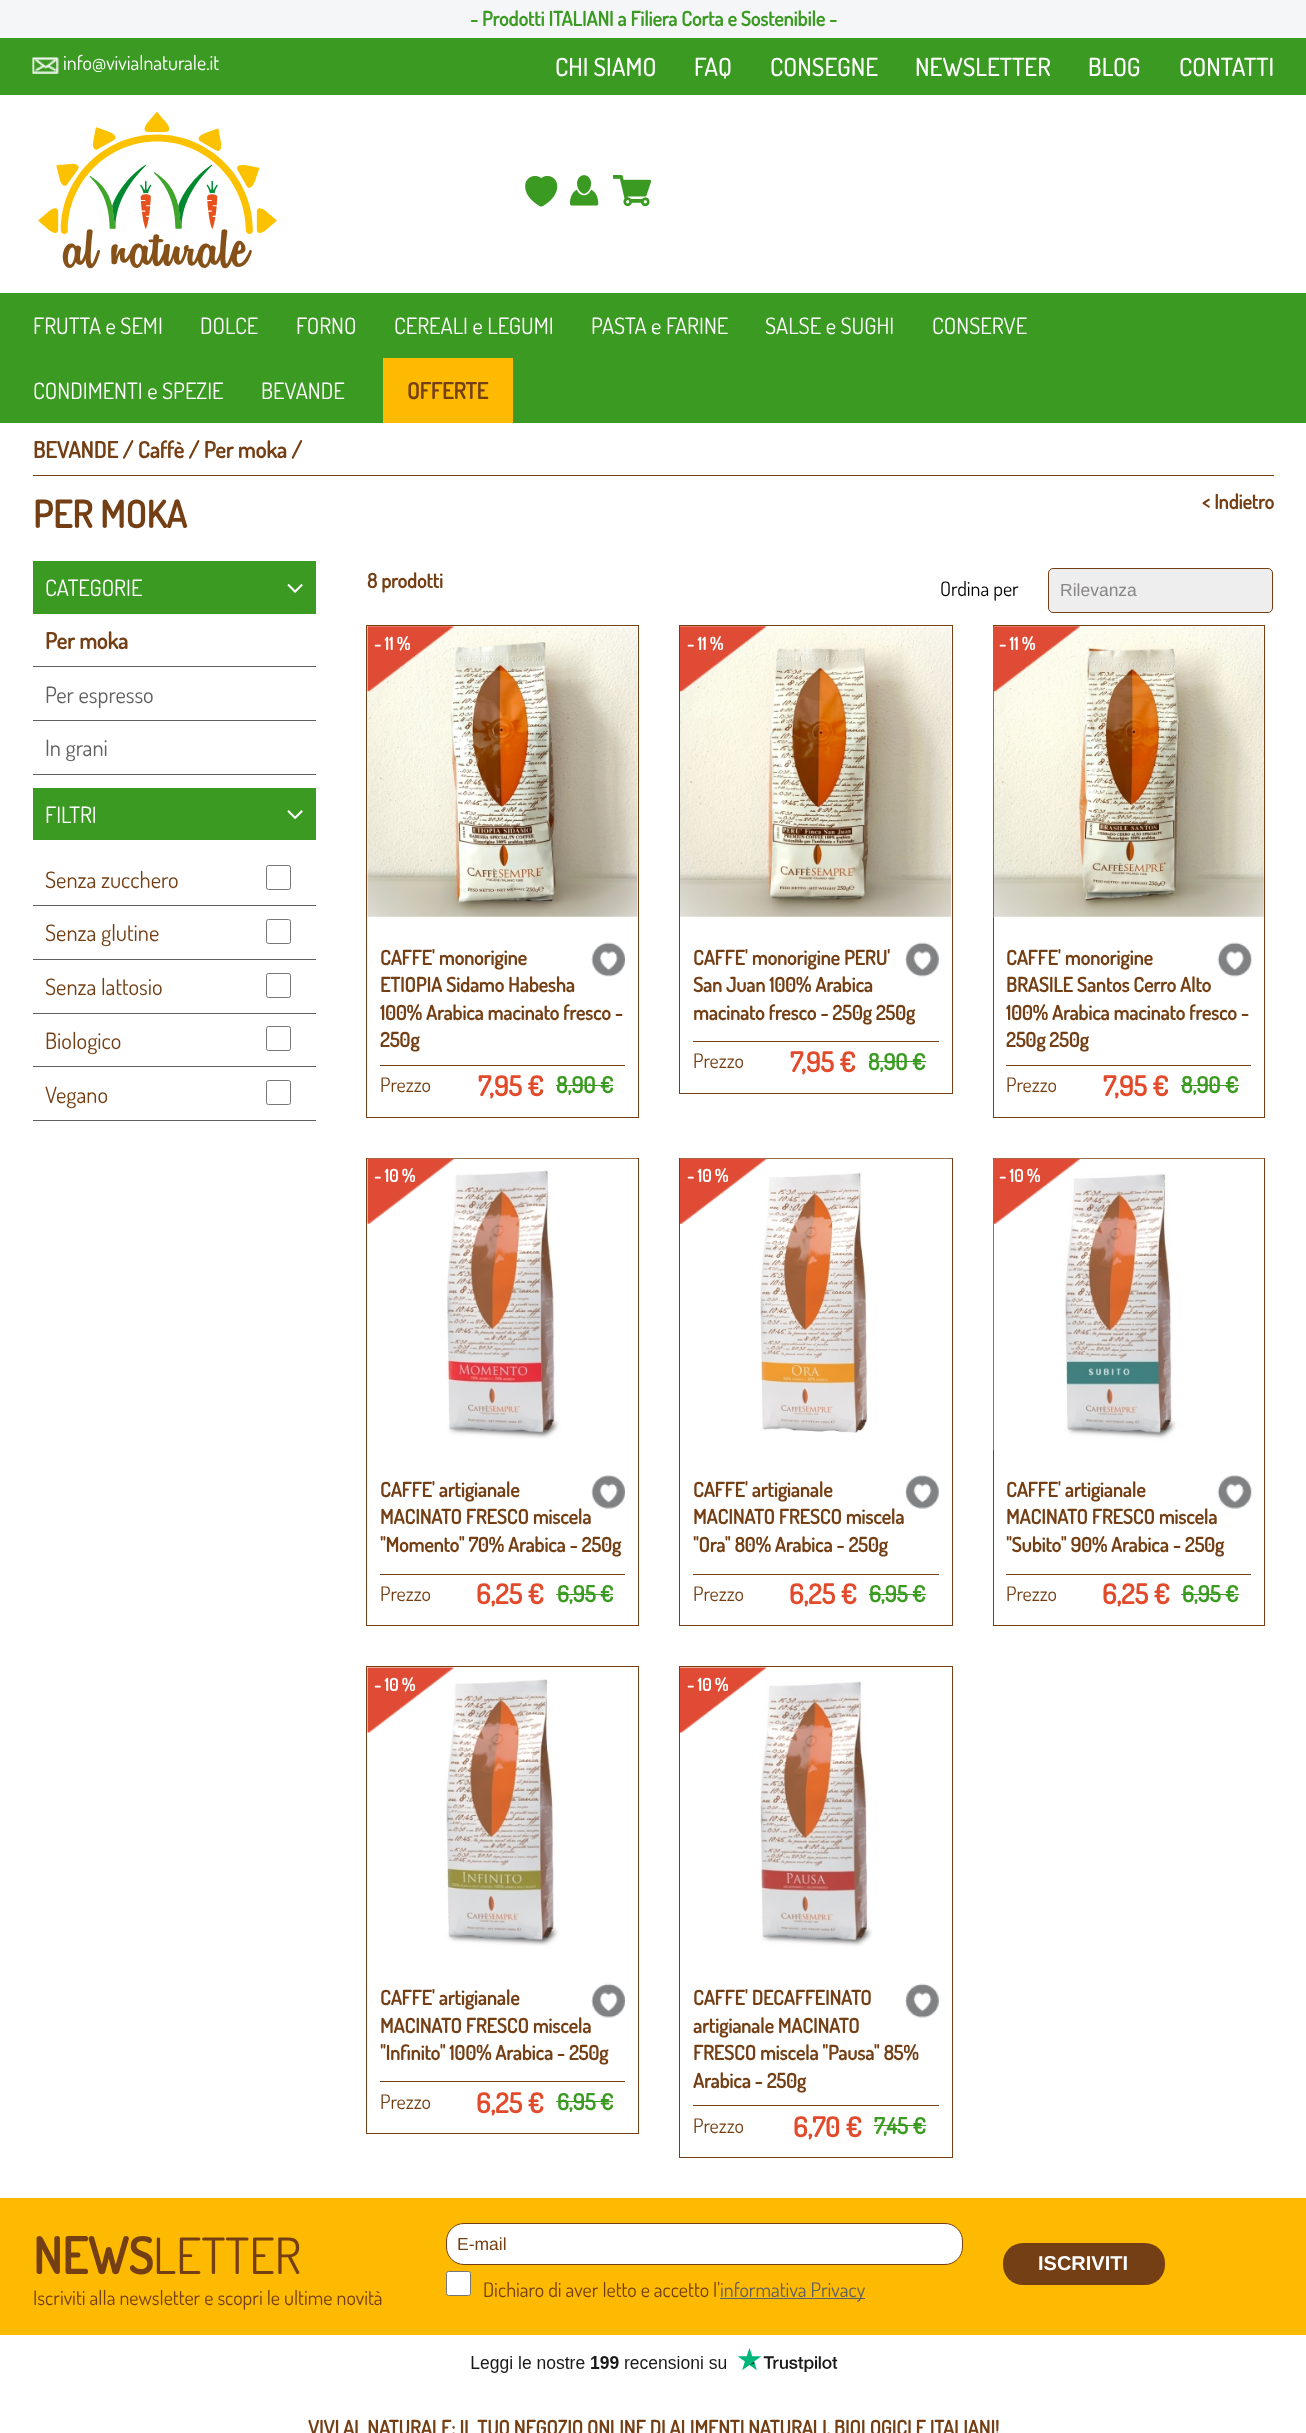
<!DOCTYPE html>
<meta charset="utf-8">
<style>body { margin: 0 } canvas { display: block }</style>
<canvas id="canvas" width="1306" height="2433"></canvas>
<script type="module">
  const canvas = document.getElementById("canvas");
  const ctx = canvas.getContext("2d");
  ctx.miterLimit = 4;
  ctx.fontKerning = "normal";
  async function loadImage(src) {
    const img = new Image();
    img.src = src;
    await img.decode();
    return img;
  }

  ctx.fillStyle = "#ffffff";
  ctx.fillRect(0, 0, 1306, 2433);
  ctx.fillStyle = "#f4f6f8";
  ctx.fillRect(0, 0, 1306, 38);
  ctx.font = "bold 20px Dosis";
  ctx.fillStyle = "#3b9a22";
  ctx.fillText("- Prodotti ITALIANI a Filiera Corta e Sostenibile -", 470, 26);
  ctx.fillRect(0, 38, 1306, 57);
  ctx.drawImage(await loadImage("img1.png"), 32, 57, 27, 17);
  ctx.font = "20px Dosis";
  ctx.fillStyle = "#ffffff";
  ctx.fillText("info@vivialnaturale.it", 63, 70);
  ctx.font = "500 25px Dosis";
  ctx.fillText("CHI SIAMO", 555, 76);
  ctx.fillText("FAQ", 694, 76);
  ctx.fillText("CONSEGNE", 770, 76);
  ctx.fillText("NEWSLETTER", 915, 76);
  ctx.fillText("BLOG", 1088, 76);
  ctx.fillText("CONTATTI", 1179, 76);
  ctx.drawImage(await loadImage("img2.png"), 38, 112, 239, 157);
  ctx.drawImage(await loadImage("img3.png"), 525, 175, 33, 32);
  ctx.drawImage(await loadImage("img4.png"), 570, 175, 29, 31);
  ctx.drawImage(await loadImage("img5.png"), 613, 175, 38, 31);
  ctx.fillStyle = "#3b9a22";
  ctx.fillRect(0, 293, 1306, 130);
  ctx.font = "22.5px Dosis";
  ctx.fillStyle = "#ffffff";
  ctx.fillText("FRUTTA e SEMI", 33, 334);
  ctx.fillText("DOLCE", 200, 334);
  ctx.fillText("FORNO", 296, 334);
  ctx.fillText("CEREALI e LEGUMI", 394, 334);
  ctx.fillText("PASTA e FARINE", 591, 334);
  ctx.fillText("SALSE e SUGHI", 765, 334);
  ctx.fillText("CONSERVE", 932, 334);
  ctx.fillText("CONDIMENTI e SPEZIE", 33, 399);
  ctx.fillText("BEVANDE", 261, 399);
  ctx.fillStyle = "#fdba00";
  ctx.fillRect(383, 358, 130, 65);
  ctx.font = "bold 22.5px Dosis";
  ctx.fillStyle = "#743f14";
  ctx.fillText("OFFERTE", 407, 399);
  ctx.fillRect(33, 475, 1241, 1);
  ctx.fillText("BEVANDE / Caffè / Per moka /", 33, 458);
  ctx.font = "bold 37.5px Dosis";
  ctx.fillText("PER MOKA", 33, 528);
  ctx.font = "bold 20px Dosis";
  ctx.fillText("< Indietro", 1202, 509);
  ctx.fillStyle = "#3b9a22";
  ctx.fillRect(33, 561, 283, 53);
  ctx.font = "22.5px Dosis";
  ctx.fillStyle = "#ffffff";
  ctx.fillText("CATEGORIE", 45, 596);
  ctx.drawImage(await loadImage("img6.png"), 287, 584, 16, 9);
  ctx.fillStyle = "#606060";
  ctx.fillRect(33, 666, 283, 1);
  ctx.font = "bold 22.5px Dosis";
  ctx.fillStyle = "#743f14";
  ctx.fillText("Per moka", 45, 649);
  ctx.fillStyle = "#606060";
  ctx.fillRect(33, 720, 283, 1);
  ctx.font = "22.5px Dosis";
  ctx.fillText("Per espresso", 45, 703);
  ctx.fillRect(33, 774, 283, 1);
  ctx.fillText("In grani", 45, 756);
  ctx.fillStyle = "#3b9a22";
  ctx.fillRect(33, 788, 283, 52);
  ctx.fillStyle = "#ffffff";
  ctx.fillText("FILTRI", 45, 823);
  ctx.drawImage(await loadImage("img7.png"), 287, 810, 16, 10);
  ctx.fillStyle = "#606060";
  ctx.fillRect(33, 905, 283, 1);
  ctx.fillStyle = "#743f14";
  ctx.fillText("Senza zucchero", 45, 888);
  ctx.beginPath();
  ctx.roundRect(266.5, 865.5, 24, 24, 2);
  ctx.strokeStyle = "#767676";
  ctx.stroke();
  ctx.fillStyle = "#606060";
  ctx.fillRect(33, 959, 283, 1);
  ctx.fillStyle = "#743f14";
  ctx.fillText("Senza glutine", 45, 941);
  ctx.beginPath();
  ctx.roundRect(266.5, 919.5, 24, 24, 2);
  ctx.stroke();
  ctx.fillStyle = "#606060";
  ctx.fillRect(33, 1013, 283, 1);
  ctx.fillStyle = "#743f14";
  ctx.fillText("Senza lattosio", 45, 995);
  ctx.beginPath();
  ctx.roundRect(266.5, 973.5, 24, 24, 2);
  ctx.stroke();
  ctx.fillStyle = "#606060";
  ctx.fillRect(33, 1066, 283, 1);
  ctx.fillStyle = "#743f14";
  ctx.fillText("Biologico", 45, 1049);
  ctx.beginPath();
  ctx.roundRect(266.5, 1026.5, 24, 24, 2);
  ctx.stroke();
  ctx.fillStyle = "#606060";
  ctx.fillRect(33, 1120, 283, 1);
  ctx.fillStyle = "#743f14";
  ctx.fillText("Vegano", 45, 1103);
  ctx.beginPath();
  ctx.roundRect(266.5, 1080.5, 24, 24, 2);
  ctx.stroke();
  ctx.font = "bold 20px Dosis";
  ctx.fillText("8 prodotti", 367, 588);
  ctx.font = "20px Dosis";
  ctx.fillStyle = "#000000";
  ctx.fillText("Ordina per", 940, 596);
  ctx.fillStyle = "#eeeeee";
  ctx.beginPath();
  ctx.roundRect(1048.5, 568.5, 224, 44, 4.5);
  ctx.fill();
  ctx.strokeStyle = "#743f14";
  ctx.stroke();
  ctx.font = "17.5px Liberation Sans";
  ctx.fillStyle = "#898687";
  ctx.fillText("Rilevanza", 1060, 596);
  ctx.strokeRect(366.5, 625.5, 272, 492);
  ctx.drawImage(await loadImage("img8.png"), 367, 626, 271, 292);
  ctx.drawImage(await loadImage("img9.png"), 367, 626, 87, 66);
  ctx.font = "bold 17.5px Dosis";
  ctx.fillStyle = "#ffffff";
  ctx.fillText("- 11 %", 374, 650);
  ctx.fillStyle = "#743f14";
  ctx.fillRect(380, 1065, 245, 1);
  ctx.font = "bold 20px Dosis";
  ctx.fillText("CAFFE' monorigine", 380, 965);
  ctx.drawImage(await loadImage("img10.png"), 591, 942, 34, 35);
  ctx.fillText("ETIOPIA Sidamo Habesha", 380, 992);
  ctx.fillText("100% Arabica macinato fresco -", 380, 1020);
  ctx.fillText("250g", 380, 1047);
  ctx.font = "20px Dosis";
  ctx.fillText("Prezzo", 380, 1092);
  ctx.font = "bold 27.5px Dosis";
  ctx.fillStyle = "#e14a2b";
  ctx.fillText("7,95 €", 478, 1096);
  ctx.font = "bold 22.5px Dosis";
  ctx.fillStyle = "#3b9a22";
  ctx.fillText("8,90 €", 556, 1093);
  ctx.fillRect(556, 1085, 57, 1);
  ctx.strokeRect(679.5, 625.5, 273, 468);
  ctx.drawImage(await loadImage("img11.png"), 680, 626, 272, 292);
  ctx.drawImage(await loadImage("img12.png"), 680, 626, 87, 66);
  ctx.font = "bold 17.5px Dosis";
  ctx.fillStyle = "#ffffff";
  ctx.fillText("- 11 %", 687, 650);
  ctx.fillStyle = "#743f14";
  ctx.fillRect(693, 1041, 246, 1);
  ctx.font = "bold 20px Dosis";
  ctx.fillText("CAFFE' monorigine PERU'", 693, 965);
  ctx.drawImage(await loadImage("img13.png"), 905, 942, 34, 35);
  ctx.fillText("San Juan 100% Arabica", 693, 992);
  ctx.fillText("macinato fresco - 250g 250g", 693, 1020);
  ctx.font = "20px Dosis";
  ctx.fillText("Prezzo", 693, 1068);
  ctx.font = "bold 27.5px Dosis";
  ctx.fillStyle = "#e14a2b";
  ctx.fillText("7,95 €", 790, 1072);
  ctx.font = "bold 22.5px Dosis";
  ctx.fillStyle = "#3b9a22";
  ctx.fillText("8,90 €", 868, 1070);
  ctx.fillRect(869, 1061, 57, 1);
  ctx.strokeRect(993.5, 625.5, 271, 492);
  ctx.drawImage(await loadImage("img14.png"), 993, 626, 271, 292);
  ctx.drawImage(await loadImage("img15.png"), 993, 626, 87, 66);
  ctx.font = "bold 17.5px Dosis";
  ctx.fillStyle = "#ffffff";
  ctx.fillText("- 11 %", 999, 650);
  ctx.fillStyle = "#743f14";
  ctx.fillRect(1006, 1065, 245, 1);
  ctx.font = "bold 20px Dosis";
  ctx.fillText("CAFFE' monorigine", 1006, 965);
  ctx.drawImage(await loadImage("img16.png"), 1217, 942, 35, 35);
  ctx.fillText("BRASILE Santos Cerro Alto", 1006, 992);
  ctx.fillText("100% Arabica macinato fresco -", 1006, 1020);
  ctx.fillText("250g 250g", 1006, 1047);
  ctx.font = "20px Dosis";
  ctx.fillText("Prezzo", 1006, 1092);
  ctx.font = "bold 27.5px Dosis";
  ctx.fillStyle = "#e14a2b";
  ctx.fillText("7,95 €", 1103, 1096);
  ctx.font = "bold 22.5px Dosis";
  ctx.fillStyle = "#3b9a22";
  ctx.fillText("8,90 €", 1181, 1093);
  ctx.fillRect(1181, 1085, 58, 1);
  ctx.strokeRect(366.5, 1158.5, 272, 467);
  ctx.drawImage(await loadImage("img17.png"), 367, 1158, 271, 281);
  ctx.drawImage(await loadImage("img18.png"), 367, 1158, 87, 66);
  ctx.font = "bold 17.5px Dosis";
  ctx.fillStyle = "#ffffff";
  ctx.fillText("- 10 %", 374, 1182);
  ctx.fillStyle = "#743f14";
  ctx.fillRect(380, 1574, 245, 1);
  ctx.font = "bold 20px Dosis";
  ctx.fillText("CAFFE' artigianale", 380, 1497);
  ctx.drawImage(await loadImage("img19.png"), 591, 1475, 34, 34);
  ctx.fillText("MACINATO FRESCO miscela", 380, 1524);
  ctx.fillText("\"Momento\" 70% Arabica - 250g", 380, 1552);
  ctx.font = "20px Dosis";
  ctx.fillText("Prezzo", 380, 1601);
  ctx.font = "bold 27.5px Dosis";
  ctx.fillStyle = "#e14a2b";
  ctx.fillText("6,25 €", 476, 1604);
  ctx.font = "bold 22.5px Dosis";
  ctx.fillStyle = "#3b9a22";
  ctx.fillText("6,95 €", 557, 1602);
  ctx.fillRect(556, 1594, 57, 1);
  ctx.strokeRect(679.5, 1158.5, 273, 467);
  ctx.drawImage(await loadImage("img20.png"), 680, 1158, 272, 275);
  ctx.drawImage(await loadImage("img21.png"), 680, 1158, 87, 66);
  ctx.font = "bold 17.5px Dosis";
  ctx.fillStyle = "#ffffff";
  ctx.fillText("- 10 %", 687, 1182);
  ctx.fillStyle = "#743f14";
  ctx.fillRect(693, 1574, 246, 1);
  ctx.font = "bold 20px Dosis";
  ctx.fillText("CAFFE' artigianale", 693, 1497);
  ctx.drawImage(await loadImage("img22.png"), 905, 1475, 34, 34);
  ctx.fillText("MACINATO FRESCO miscela", 693, 1524);
  ctx.fillText("\"Ora\" 80% Arabica - 250g", 693, 1552);
  ctx.font = "20px Dosis";
  ctx.fillText("Prezzo", 693, 1601);
  ctx.font = "bold 27.5px Dosis";
  ctx.fillStyle = "#e14a2b";
  ctx.fillText("6,25 €", 789, 1604);
  ctx.font = "bold 22.5px Dosis";
  ctx.fillStyle = "#3b9a22";
  ctx.fillText("6,95 €", 869, 1602);
  ctx.fillRect(869, 1594, 57, 1);
  ctx.strokeRect(993.5, 1158.5, 271, 467);
  ctx.drawImage(await loadImage("img23.png"), 993, 1158, 271, 292);
  ctx.drawImage(await loadImage("img24.png"), 993, 1158, 87, 66);
  ctx.font = "bold 17.5px Dosis";
  ctx.fillStyle = "#ffffff";
  ctx.fillText("- 10 %", 999, 1182);
  ctx.fillStyle = "#743f14";
  ctx.fillRect(1006, 1574, 245, 1);
  ctx.font = "bold 20px Dosis";
  ctx.fillText("CAFFE' artigianale", 1006, 1497);
  ctx.drawImage(await loadImage("img25.png"), 1217, 1475, 35, 34);
  ctx.fillText("MACINATO FRESCO miscela", 1006, 1524);
  ctx.fillText("\"Subito\" 90% Arabica - 250g", 1006, 1552);
  ctx.font = "20px Dosis";
  ctx.fillText("Prezzo", 1006, 1601);
  ctx.font = "bold 27.5px Dosis";
  ctx.fillStyle = "#e14a2b";
  ctx.fillText("6,25 €", 1102, 1604);
  ctx.font = "bold 22.5px Dosis";
  ctx.fillStyle = "#3b9a22";
  ctx.fillText("6,95 €", 1182, 1602);
  ctx.fillRect(1181, 1594, 58, 1);
  ctx.strokeRect(366.5, 1666.5, 272, 467);
  ctx.drawImage(await loadImage("img27.png"), 445, 1679, 114, 267);
  ctx.drawImage(await loadImage("img26.png"), 367, 1667, 87, 66);
  ctx.font = "bold 17.5px Dosis";
  ctx.fillStyle = "#ffffff";
  ctx.fillText("- 10 %", 374, 1691);
  ctx.fillStyle = "#743f14";
  ctx.fillRect(380, 2081, 245, 1);
  ctx.font = "bold 20px Dosis";
  ctx.fillText("CAFFE' artigianale", 380, 2005);
  ctx.drawImage(await loadImage("img28.png"), 591, 1983, 34, 35);
  ctx.fillText("MACINATO FRESCO miscela", 380, 2033);
  ctx.fillText("\"Infinito\" 100% Arabica - 250g", 380, 2060);
  ctx.font = "20px Dosis";
  ctx.fillText("Prezzo", 380, 2109);
  ctx.font = "bold 27.5px Dosis";
  ctx.fillStyle = "#e14a2b";
  ctx.fillText("6,25 €", 476, 2113);
  ctx.font = "bold 22.5px Dosis";
  ctx.fillStyle = "#3b9a22";
  ctx.fillText("6,95 €", 557, 2110);
  ctx.fillRect(556, 2101, 57, 1);
  ctx.strokeRect(679.5, 1666.5, 273, 491);
  ctx.drawImage(await loadImage("img30.png"), 760, 1681, 113, 266);
  ctx.drawImage(await loadImage("img29.png"), 680, 1667, 87, 66);
  ctx.font = "bold 17.5px Dosis";
  ctx.fillStyle = "#ffffff";
  ctx.fillText("- 10 %", 687, 1691);
  ctx.fillStyle = "#743f14";
  ctx.fillRect(693, 2105, 246, 1);
  ctx.font = "bold 20px Dosis";
  ctx.fillText("CAFFE' DECAFFEINATO", 693, 2005);
  ctx.drawImage(await loadImage("img31.png"), 905, 1983, 34, 35);
  ctx.fillText("artigianale MACINATO", 693, 2033);
  ctx.fillText("FRESCO miscela \"Pausa\" 85%", 693, 2060);
  ctx.fillText("Arabica - 250g", 693, 2088);
  ctx.font = "20px Dosis";
  ctx.fillText("Prezzo", 693, 2133);
  ctx.font = "bold 27.5px Dosis";
  ctx.fillStyle = "#e14a2b";
  ctx.fillText("6,70 €", 793, 2137);
  ctx.font = "bold 22.5px Dosis";
  ctx.fillStyle = "#3b9a22";
  ctx.fillText("7,45 €", 874, 2134);
  ctx.fillRect(874, 2125, 52, 1);
  ctx.fillStyle = "#fdba00";
  ctx.fillRect(0, 2198, 1306, 137);
  ctx.font = "bold 50px Dosis";
  ctx.fillStyle = "#743f14";
  ctx.fillText("NEWS", 33, 2274);
  ctx.font = "50px Dosis";
  ctx.fillText("LETTER", 153, 2274);
  ctx.font = "20px Dosis";
  ctx.fillText("Iscriviti alla newsletter e scopri le ultime novità", 33, 2305);
  ctx.fillStyle = "#ffffff";
  ctx.beginPath();
  ctx.roundRect(446.5, 2223.5, 516, 41, 17.5);
  ctx.fill();
  ctx.stroke();
  ctx.font = "17.5px Liberation Sans";
  ctx.fillStyle = "#743f14";
  ctx.fillText("E-mail", 457, 2250);
  ctx.fillStyle = "#ffffff";
  ctx.beginPath();
  ctx.roundRect(446.5, 2271.5, 24, 24, 2);
  ctx.fill();
  ctx.strokeStyle = "#767676";
  ctx.stroke();
  ctx.font = "20px Dosis";
  ctx.fillStyle = "#743f14";
  ctx.fillText("Dichiaro di aver letto e accetto l'", 483, 2297);
  ctx.fillStyle = "#606060";
  ctx.fillRect(720, 2298, 145, 1);
  ctx.fillText("informativa Privacy", 720, 2297);
  ctx.fillStyle = "#743f14";
  ctx.beginPath();
  ctx.roundRect(1003, 2243, 162, 42, 20);
  ctx.fill();
  ctx.font = "bold 20px Liberation Sans";
  ctx.fillStyle = "#ffffff";
  ctx.fillText("ISCRIVITI", 1038, 2270);
  ctx.drawImage(await loadImage("img32.png"), 471, 2348, 367, 25);
  ctx.font = "bold 20px Dosis";
  ctx.fillStyle = "#743f14";
  ctx.fillText("VIVI AL NATURALE: IL TUO NEGOZIO ONLINE DI ALIMENTI NATURALI, BIOLOGICI E ITALIANI!", 308, 2435);
</script>
